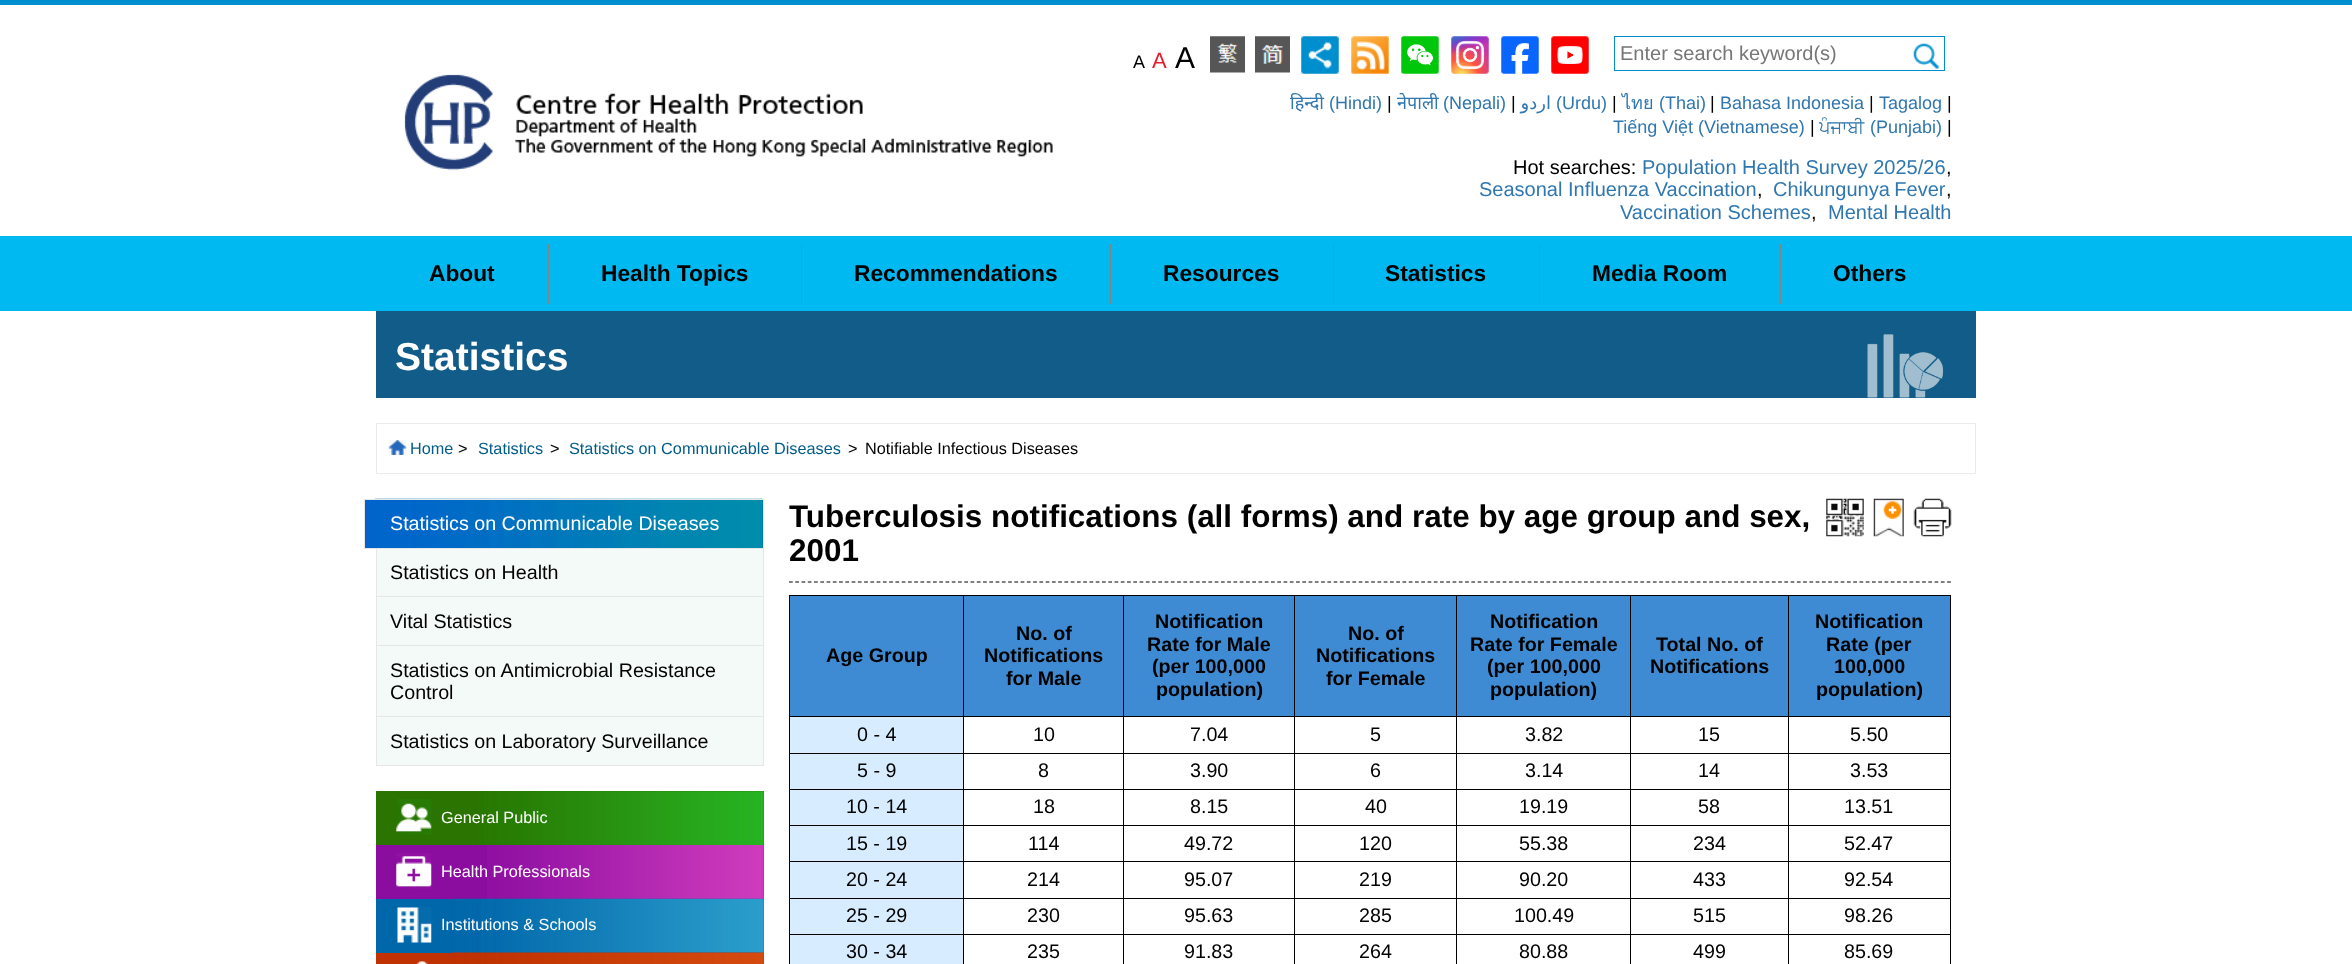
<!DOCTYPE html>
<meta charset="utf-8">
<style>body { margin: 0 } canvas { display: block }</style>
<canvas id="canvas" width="2352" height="964"></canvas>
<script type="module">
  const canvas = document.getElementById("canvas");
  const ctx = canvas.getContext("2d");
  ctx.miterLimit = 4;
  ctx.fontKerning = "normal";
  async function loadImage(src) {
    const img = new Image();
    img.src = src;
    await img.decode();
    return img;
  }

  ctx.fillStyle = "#ffffff";
  ctx.fillRect(0, 0, 2352, 964);
  ctx.fillStyle = "#008fce";
  ctx.fillRect(0, 0, 2352, 5);
  ctx.drawImage(await loadImage("img1.png"), 404, 74, 649, 97);
  ctx.font = "18px Liberation Sans";
  ctx.fillStyle = "#000000";
  ctx.fillText("A", 1133, 68);
  ctx.font = "22px Liberation Sans";
  ctx.fillStyle = "#e51f2e";
  ctx.fillText("A", 1152, 68);
  ctx.font = "30px Liberation Sans";
  ctx.fillStyle = "#000000";
  ctx.fillText("A", 1175, 68);
  ctx.drawImage(await loadImage("img2.png"), 1210, 36, 35, 37);
  ctx.drawImage(await loadImage("img3.png"), 1255, 36, 35, 37);
  ctx.drawImage(await loadImage("img4.png"), 1301, 36, 38, 38);
  ctx.drawImage(await loadImage("img5.png"), 1351, 36, 38, 38);
  ctx.drawImage(await loadImage("img6.png"), 1401, 36, 38, 38);
  ctx.drawImage(await loadImage("img7.png"), 1451, 36, 38, 38);
  ctx.drawImage(await loadImage("img8.png"), 1501, 36, 38, 38);
  ctx.drawImage(await loadImage("img9.png"), 1551, 36, 38, 38);
  ctx.strokeStyle = "#008fce";
  ctx.strokeRect(1614.5, 36.5, 330, 34);
  ctx.font = "20px Liberation Sans";
  ctx.fillStyle = "#767676";
  ctx.fillText("Enter search keyword(s)", 1620, 60);
  ctx.drawImage(await loadImage("img10.png"), 1913, 43, 26, 26);
  ctx.font = "18px Noto Sans";
  ctx.fillStyle = "#3077af";
  ctx.fillText("हिन्दी", 1290, 109);
  ctx.font = "18px Liberation Sans";
  ctx.fillText("(Hindi)", 1329, 109);
  ctx.fillStyle = "#000000";
  ctx.fillText("|", 1387, 109);
  ctx.font = "18px Noto Sans";
  ctx.fillStyle = "#3077af";
  ctx.fillText("नेपाली", 1397, 109);
  ctx.font = "18px Loma";
  ctx.fillText("ไทย", 1622, 109);
  ctx.font = "18px Liberation Sans";
  ctx.fillText("(Nepali)", 1443, 109);
  ctx.fillStyle = "#000000";
  ctx.fillText("|", 1511, 109);
  ctx.direction = "rtl";
  ctx.font = "18px DejaVu Sans";
  ctx.fillStyle = "#3077af";
  ctx.fillText("اردو", 1551, 109);
  ctx.direction = "ltr";
  ctx.font = "18px Liberation Sans";
  ctx.fillText("(Urdu)", 1556, 109);
  ctx.fillStyle = "#000000";
  ctx.fillText("|", 1612, 109);
  ctx.fillStyle = "#3077af";
  ctx.fillText("(Thai)", 1659, 109);
  ctx.fillStyle = "#000000";
  ctx.fillText("|", 1710, 109);
  ctx.fillStyle = "#3077af";
  ctx.fillText("Bahasa Indonesia", 1720, 109);
  ctx.fillStyle = "#000000";
  ctx.fillText("|", 1869, 109);
  ctx.fillStyle = "#3077af";
  ctx.fillText("Tagalog", 1879, 109);
  ctx.fillStyle = "#000000";
  ctx.fillText("|", 1947, 109);
  ctx.fillStyle = "#3077af";
  ctx.fillText("Tiếng Việt (Vietnamese)", 1613, 133);
  ctx.fillStyle = "#000000";
  ctx.fillText("|", 1810, 133);
  ctx.font = "18px FreeSans";
  ctx.fillStyle = "#3077af";
  ctx.fillText("ਪੰਜਾਬੀ", 1819, 133);
  ctx.font = "18px Liberation Sans";
  ctx.fillText("(Punjabi)", 1870, 133);
  ctx.fillStyle = "#000000";
  ctx.fillText("|", 1947, 133);
  ctx.font = "20px Liberation Sans";
  ctx.fillText("Hot searches:", 1513, 174);
  ctx.fillStyle = "#3077af";
  ctx.fillText("Population Health Survey 2025/26", 1642, 174);
  ctx.fillStyle = "#000000";
  ctx.fillText(",", 1946, 174);
  ctx.fillStyle = "#3077af";
  ctx.fillText("Seasonal Influenza Vaccination", 1479, 196);
  ctx.fillStyle = "#000000";
  ctx.fillText(",", 1757, 196);
  ctx.wordSpacing = "-1px";
  ctx.fillStyle = "#3077af";
  ctx.fillText("Chikungunya Fever", 1773, 196);
  ctx.wordSpacing = "0px";
  ctx.fillStyle = "#000000";
  ctx.fillText(",", 1946, 196);
  ctx.fillStyle = "#3077af";
  ctx.fillText("Vaccination Schemes", 1620, 219);
  ctx.fillStyle = "#000000";
  ctx.fillText(",", 1811, 219);
  ctx.fillStyle = "#3077af";
  ctx.fillText("Mental Health", 1828, 219);
  ctx.fillStyle = "#00b9f1";
  ctx.fillRect(0, 236, 2352, 75);
  ctx.font = "bold 22.75px Liberation Sans";
  ctx.fillStyle = "#000000";
  ctx.fillText("About", 429, 281);
  ctx.fillStyle = "#838383";
  ctx.fillRect(548, 244, 1, 60);
  ctx.fillStyle = "#000000";
  ctx.fillText("Health Topics", 601, 281);
  ctx.fillStyle = "#838383";
  ctx.fillRect(801, 244, 1, 60);
  ctx.fillStyle = "#000000";
  ctx.fillText("Recommendations", 854, 281);
  ctx.fillStyle = "#838383";
  ctx.fillRect(1110, 244, 1, 60);
  ctx.fillStyle = "#000000";
  ctx.fillText("Resources", 1163, 281);
  ctx.fillStyle = "#838383";
  ctx.fillRect(1333, 244, 1, 60);
  ctx.fillStyle = "#000000";
  ctx.fillText("Statistics", 1385, 281);
  ctx.fillStyle = "#838383";
  ctx.fillRect(1539, 244, 1, 60);
  ctx.fillStyle = "#000000";
  ctx.fillText("Media Room", 1592, 281);
  ctx.fillStyle = "#838383";
  ctx.fillRect(1780, 244, 1, 60);
  ctx.fillStyle = "#000000";
  ctx.fillText("Others", 1833, 281);
  ctx.fillStyle = "#125c89";
  ctx.fillRect(376, 311, 1600, 87);
  ctx.font = "bold 39px Liberation Sans";
  ctx.fillStyle = "#ffffff";
  ctx.fillText("Statistics", 395, 370);
  ctx.drawImage(await loadImage("img11.png"), 1867, 334, 79, 64);
  ctx.strokeStyle = "#ebebeb";
  ctx.strokeRect(376.5, 423.5, 1599, 50);
  ctx.drawImage(await loadImage("img12.png"), 388, 440, 19, 15);
  ctx.font = "16.25px Liberation Sans";
  ctx.fillStyle = "#005c8a";
  ctx.fillText("Home", 410, 454);
  ctx.fillStyle = "#000000";
  ctx.fillText(">", 458, 454);
  ctx.fillStyle = "#005c8a";
  ctx.fillText("Statistics", 478, 454);
  ctx.fillStyle = "#000000";
  ctx.fillText(">", 550, 454);
  ctx.fillStyle = "#005c8a";
  ctx.fillText("Statistics on Communicable Diseases", 569, 454);
  ctx.fillStyle = "#000000";
  ctx.fillText(">", 848, 454);
  ctx.fillText("Notifiable Infectious Diseases", 865, 454);
  ctx.fillStyle = "#f4faf8";
  ctx.fillRect(377, 549, 386, 216);
  ctx.fillStyle = "#0064cb";
  ctx.fillRect(365, 500, 398, 48);
  ctx.drawImage(await loadImage("img13.png"), 375, 498, 388, 50);
  ctx.strokeStyle = "#e6e6e6";
  ctx.strokeRect(364.5, 499.5, 399, 49);
  ctx.font = "19.7px Liberation Sans";
  ctx.fillStyle = "#ffffff";
  ctx.fillText("Statistics on Communicable Diseases", 390, 530);
  ctx.fillStyle = "#e6e6e6";
  ctx.fillRect(763, 549, 1, 217);
  ctx.fillRect(376, 596, 388, 1);
  ctx.fillRect(376, 549, 1, 49);
  ctx.fillStyle = "#000000";
  ctx.fillText("Statistics on Health", 390, 579);
  ctx.fillStyle = "#e6e6e6";
  ctx.fillRect(376, 645, 388, 1);
  ctx.fillRect(376, 598, 1, 48);
  ctx.fillStyle = "#000000";
  ctx.fillText("Vital Statistics", 390, 628);
  ctx.fillStyle = "#e6e6e6";
  ctx.fillRect(376, 716, 388, 1);
  ctx.fillRect(376, 646, 1, 72);
  ctx.fillStyle = "#000000";
  ctx.fillText("Statistics on Antimicrobial Resistance", 390, 677);
  ctx.fillText("Control", 390, 699);
  ctx.fillStyle = "#e6e6e6";
  ctx.fillRect(376, 765, 388, 1);
  ctx.fillRect(376, 718, 1, 48);
  ctx.fillStyle = "#000000";
  ctx.fillText("Statistics on Laboratory Surveillance", 390, 748);
  ctx.fillStyle = "#2b7401";
  ctx.fillRect(376, 791, 388, 54);
  ctx.drawImage(await loadImage("img14.png"), 479, 791, 285, 54);
  ctx.drawImage(await loadImage("img15.png"), 396, 799, 36, 36);
  ctx.font = "16.25px Liberation Sans";
  ctx.fillStyle = "#ffffff";
  ctx.fillText("General Public", 441, 823);
  ctx.fillStyle = "#8b0d9f";
  ctx.fillRect(376, 845, 388, 54);
  ctx.drawImage(await loadImage("img16.png"), 487, 845, 277, 54);
  ctx.drawImage(await loadImage("img17.png"), 396, 853, 36, 36);
  ctx.fillStyle = "#ffffff";
  ctx.fillText("Health Professionals", 441, 877);
  ctx.fillStyle = "#0067aa";
  ctx.fillRect(376, 899, 388, 54);
  ctx.drawImage(await loadImage("img18.png"), 451, 898, 313, 55);
  ctx.drawImage(await loadImage("img19.png"), 397, 907, 35, 36);
  ctx.fillStyle = "#ffffff";
  ctx.fillText("Institutions & Schools", 441, 930);
  ctx.fillStyle = "#c03202";
  ctx.fillRect(376, 953, 388, 11);
  ctx.drawImage(await loadImage("img20.png"), 451, 952, 313, 12);
  ctx.drawImage(await loadImage("img21.png"), 416, 961, 12, 3);
  ctx.beginPath();
  ctx.moveTo(789, 582);
  ctx.lineTo(1951, 582);
  ctx.strokeStyle = "#000000";
  ctx.lineWidth = 1.2;
  ctx.setLineDash([3.75, 2.51]);
  ctx.stroke();
  ctx.font = "bold 31.45px Liberation Sans";
  ctx.fillStyle = "#000000";
  ctx.fillText("Tuberculosis notifications (all forms) and rate by age group and sex,", 789, 527);
  ctx.fillText("2001", 789, 561);
  ctx.drawImage(await loadImage("img22.png"), 1826, 498, 38, 39);
  ctx.drawImage(await loadImage("img23.png"), 1873, 498, 31, 39);
  ctx.drawImage(await loadImage("img24.png"), 1913, 498, 39, 39);
  ctx.fillStyle = "#3e8bd4";
  ctx.fillRect(790, 596, 173, 120);
  ctx.fillStyle = "#000000";
  ctx.fillRect(1788, 595, 163, 1);
  ctx.fillRect(1788, 716, 163, 1);
  ctx.fillRect(1788, 753, 163, 1);
  ctx.fillRect(1788, 789, 163, 1);
  ctx.fillRect(1788, 825, 163, 1);
  ctx.fillRect(1788, 861, 163, 1);
  ctx.fillRect(1788, 898, 163, 1);
  ctx.fillRect(1788, 934, 163, 1);
  ctx.fillRect(1788, 934, 1, 30);
  ctx.fillRect(1630, 934, 159, 1);
  ctx.fillRect(1788, 898, 1, 37);
  ctx.fillRect(1630, 898, 159, 1);
  ctx.fillRect(1788, 861, 1, 38);
  ctx.fillRect(1630, 861, 159, 1);
  ctx.fillRect(1788, 825, 1, 38);
  ctx.fillRect(1630, 825, 159, 1);
  ctx.fillRect(1788, 789, 1, 37);
  ctx.fillRect(1630, 789, 159, 1);
  ctx.fillRect(1788, 753, 1, 37);
  ctx.fillRect(1630, 753, 159, 1);
  ctx.fillRect(1788, 716, 1, 38);
  ctx.fillRect(1630, 716, 159, 1);
  ctx.fillRect(1788, 595, 1, 123);
  ctx.fillRect(1630, 595, 159, 1);
  ctx.fillRect(1630, 934, 1, 30);
  ctx.fillRect(1456, 934, 175, 1);
  ctx.fillRect(1630, 898, 1, 37);
  ctx.fillRect(1456, 898, 175, 1);
  ctx.fillRect(1630, 861, 1, 38);
  ctx.fillRect(1456, 861, 175, 1);
  ctx.fillRect(1630, 825, 1, 38);
  ctx.fillRect(1456, 825, 175, 1);
  ctx.fillRect(1630, 789, 1, 37);
  ctx.fillRect(1456, 789, 175, 1);
  ctx.fillRect(1630, 753, 1, 37);
  ctx.fillRect(1456, 753, 175, 1);
  ctx.fillRect(1630, 716, 1, 38);
  ctx.fillRect(1456, 716, 175, 1);
  ctx.fillRect(1630, 595, 1, 123);
  ctx.fillRect(1456, 595, 175, 1);
  ctx.fillStyle = "#3e8bd4";
  ctx.fillRect(1295, 596, 335, 120);
  ctx.fillStyle = "#000000";
  ctx.fillRect(1456, 934, 1, 30);
  ctx.fillRect(1294, 934, 164, 1);
  ctx.fillRect(1456, 898, 1, 37);
  ctx.fillRect(1294, 898, 164, 1);
  ctx.fillRect(1456, 861, 1, 38);
  ctx.fillRect(1294, 861, 164, 1);
  ctx.fillRect(1456, 825, 1, 38);
  ctx.fillRect(1294, 825, 164, 1);
  ctx.fillRect(1456, 789, 1, 37);
  ctx.fillRect(1294, 789, 164, 1);
  ctx.fillRect(1456, 753, 1, 37);
  ctx.fillRect(1294, 753, 164, 1);
  ctx.fillRect(1456, 716, 1, 38);
  ctx.fillRect(1294, 716, 164, 1);
  ctx.fillRect(1456, 595, 1, 123);
  ctx.fillRect(1294, 595, 164, 1);
  ctx.fillRect(1294, 934, 1, 30);
  ctx.fillRect(1123, 934, 172, 1);
  ctx.fillRect(1294, 898, 1, 37);
  ctx.fillRect(1123, 898, 172, 1);
  ctx.fillRect(1294, 861, 1, 38);
  ctx.fillRect(1123, 861, 172, 1);
  ctx.fillRect(1294, 825, 1, 38);
  ctx.fillRect(1123, 825, 172, 1);
  ctx.fillRect(1294, 789, 1, 37);
  ctx.fillRect(1123, 789, 172, 1);
  ctx.fillRect(1294, 753, 1, 37);
  ctx.fillRect(1123, 753, 172, 1);
  ctx.fillRect(1294, 716, 1, 38);
  ctx.fillRect(1123, 716, 172, 1);
  ctx.fillRect(1294, 595, 1, 123);
  ctx.fillRect(1123, 595, 172, 1);
  ctx.fillRect(1123, 934, 1, 30);
  ctx.fillRect(963, 934, 161, 1);
  ctx.fillRect(1123, 898, 1, 37);
  ctx.fillRect(963, 898, 161, 1);
  ctx.fillRect(1123, 861, 1, 38);
  ctx.fillRect(963, 861, 161, 1);
  ctx.fillRect(1123, 825, 1, 38);
  ctx.fillRect(963, 825, 161, 1);
  ctx.fillRect(1123, 789, 1, 37);
  ctx.fillRect(963, 789, 161, 1);
  ctx.fillRect(1123, 753, 1, 37);
  ctx.fillRect(963, 753, 161, 1);
  ctx.fillRect(1123, 716, 1, 38);
  ctx.fillRect(963, 716, 161, 1);
  ctx.fillRect(1123, 595, 1, 123);
  ctx.fillRect(963, 595, 161, 1);
  ctx.fillRect(963, 934, 1, 30);
  ctx.fillRect(789, 934, 175, 1);
  ctx.fillRect(963, 898, 1, 37);
  ctx.fillRect(789, 898, 175, 1);
  ctx.fillRect(963, 861, 1, 38);
  ctx.fillRect(789, 861, 175, 1);
  ctx.fillRect(963, 825, 1, 38);
  ctx.fillRect(789, 825, 175, 1);
  ctx.fillRect(963, 789, 1, 37);
  ctx.fillRect(789, 789, 175, 1);
  ctx.fillRect(963, 753, 1, 37);
  ctx.fillRect(789, 753, 175, 1);
  ctx.fillRect(963, 716, 1, 38);
  ctx.fillRect(789, 716, 175, 1);
  ctx.fillRect(963, 595, 1, 123);
  ctx.fillRect(789, 595, 175, 1);
  ctx.fillRect(789, 934, 1, 30);
  ctx.fillRect(789, 898, 1, 37);
  ctx.fillRect(789, 861, 1, 38);
  ctx.fillRect(789, 825, 1, 38);
  ctx.fillRect(789, 789, 1, 37);
  ctx.fillRect(789, 753, 1, 37);
  ctx.fillRect(789, 716, 1, 38);
  ctx.fillRect(789, 595, 1, 123);
  ctx.font = "bold 19.7px Liberation Sans";
  ctx.fillText("Age Group", 826, 662);
  ctx.fillStyle = "#3e8bd4";
  ctx.fillRect(964, 596, 159, 120);
  ctx.fillStyle = "#000000";
  ctx.fillText("No. of", 1016, 640);
  ctx.fillText("Notifications", 984, 662);
  ctx.fillText("for Male", 1006, 685);
  ctx.fillStyle = "#3e8bd4";
  ctx.fillRect(1124, 596, 170, 120);
  ctx.fillStyle = "#000000";
  ctx.fillText("Notification", 1155, 628);
  ctx.fillText("Rate for Male", 1147, 651);
  ctx.fillText("(per 100,000", 1152, 673);
  ctx.fillText("population)", 1156, 696);
  ctx.fillText("No. of", 1348, 640);
  ctx.fillText("Notifications", 1316, 662);
  ctx.fillText("for Female", 1326, 685);
  ctx.fillText("Notification", 1490, 628);
  ctx.fillText("Rate for Female", 1470, 651);
  ctx.fillText("(per 100,000", 1487, 673);
  ctx.fillText("population)", 1490, 696);
  ctx.fillStyle = "#3e8bd4";
  ctx.fillRect(1631, 596, 157, 120);
  ctx.fillStyle = "#000000";
  ctx.fillText("Total No. of", 1656, 651);
  ctx.fillText("Notifications", 1650, 673);
  ctx.fillStyle = "#3e8bd4";
  ctx.fillRect(1789, 596, 161, 120);
  ctx.fillStyle = "#000000";
  ctx.fillRect(1950, 934, 1, 30);
  ctx.fillRect(1950, 898, 1, 37);
  ctx.fillRect(1950, 861, 1, 38);
  ctx.fillRect(1950, 825, 1, 38);
  ctx.fillRect(1950, 789, 1, 37);
  ctx.fillRect(1950, 753, 1, 37);
  ctx.fillRect(1950, 716, 1, 38);
  ctx.fillRect(1950, 595, 1, 123);
  ctx.fillText("Notification", 1815, 628);
  ctx.fillText("Rate (per", 1826, 651);
  ctx.fillText("100,000", 1834, 673);
  ctx.fillText("population)", 1816, 696);
  ctx.fillStyle = "#d7edff";
  ctx.fillRect(790, 717, 173, 36);
  ctx.font = "19.7px Liberation Sans";
  ctx.fillStyle = "#000000";
  ctx.fillText("0 - 4", 857, 741);
  ctx.fillText("10", 1033, 741);
  ctx.fillText("7.04", 1190, 741);
  ctx.fillText("5", 1370, 741);
  ctx.fillText("3.82", 1525, 741);
  ctx.fillText("15", 1698, 741);
  ctx.fillText("5.50", 1850, 741);
  ctx.fillStyle = "#d7edff";
  ctx.fillRect(790, 754, 173, 35);
  ctx.fillStyle = "#000000";
  ctx.fillText("5 - 9", 857, 777);
  ctx.fillText("8", 1038, 777);
  ctx.fillText("3.90", 1190, 777);
  ctx.fillText("6", 1370, 777);
  ctx.fillText("3.14", 1525, 777);
  ctx.fillText("14", 1698, 777);
  ctx.fillText("3.53", 1850, 777);
  ctx.fillStyle = "#d7edff";
  ctx.fillRect(790, 790, 173, 35);
  ctx.fillStyle = "#000000";
  ctx.fillText("10 - 14", 846, 813);
  ctx.fillText("18", 1033, 813);
  ctx.fillText("8.15", 1190, 813);
  ctx.fillText("40", 1365, 813);
  ctx.fillText("19.19", 1519, 813);
  ctx.fillText("58", 1698, 813);
  ctx.fillText("13.51", 1844, 813);
  ctx.fillStyle = "#d7edff";
  ctx.fillRect(790, 826, 173, 35);
  ctx.fillStyle = "#000000";
  ctx.fillText("15 - 19", 846, 850);
  ctx.fillText("114", 1028, 850);
  ctx.fillText("49.72", 1184, 850);
  ctx.fillText("120", 1359, 850);
  ctx.fillText("55.38", 1519, 850);
  ctx.fillText("234", 1693, 850);
  ctx.fillText("52.47", 1844, 850);
  ctx.fillStyle = "#d7edff";
  ctx.fillRect(790, 862, 173, 36);
  ctx.fillStyle = "#000000";
  ctx.fillText("20 - 24", 846, 886);
  ctx.fillText("214", 1027, 886);
  ctx.fillText("95.07", 1184, 886);
  ctx.fillText("219", 1359, 886);
  ctx.fillText("90.20", 1519, 886);
  ctx.fillText("433", 1693, 886);
  ctx.fillText("92.54", 1844, 886);
  ctx.fillStyle = "#d7edff";
  ctx.fillRect(790, 899, 173, 35);
  ctx.fillStyle = "#000000";
  ctx.fillText("25 - 29", 846, 922);
  ctx.fillText("230", 1027, 922);
  ctx.fillText("95.63", 1184, 922);
  ctx.fillText("285", 1359, 922);
  ctx.fillText("100.49", 1514, 922);
  ctx.fillText("515", 1693, 922);
  ctx.fillText("98.26", 1844, 922);
  ctx.fillStyle = "#d7edff";
  ctx.fillRect(790, 935, 173, 29);
  ctx.fillStyle = "#000000";
  ctx.fillText("30 - 34", 846, 958);
  ctx.fillText("235", 1027, 958);
  ctx.fillText("91.83", 1184, 958);
  ctx.fillText("264", 1359, 958);
  ctx.fillText("80.88", 1519, 958);
  ctx.fillText("499", 1693, 958);
  ctx.fillText("85.69", 1844, 958);
</script>
